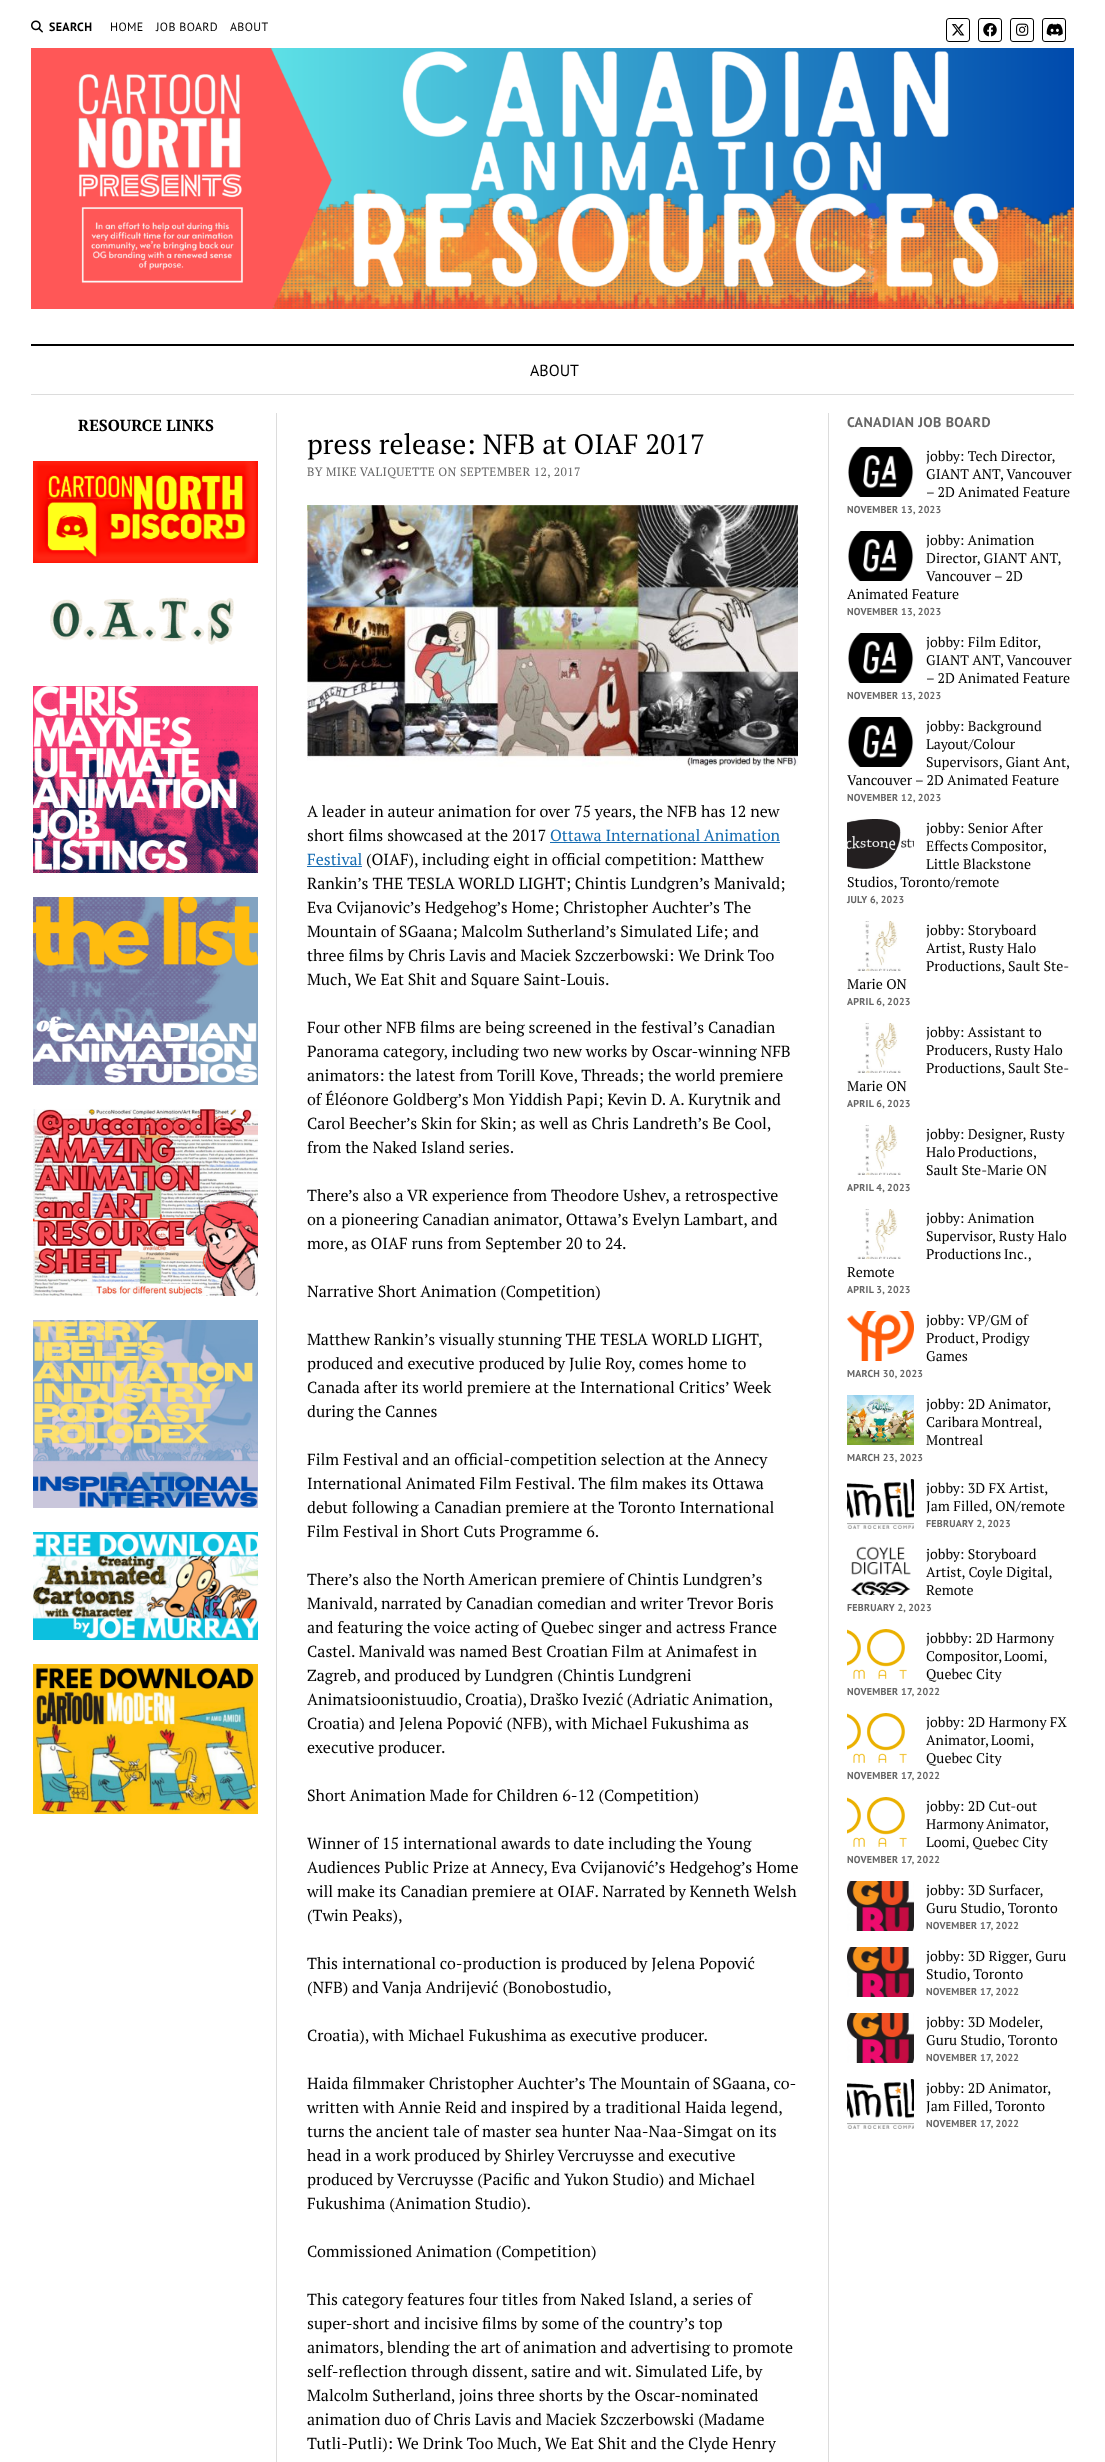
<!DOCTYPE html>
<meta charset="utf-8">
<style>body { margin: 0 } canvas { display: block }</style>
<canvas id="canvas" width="1105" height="2462"></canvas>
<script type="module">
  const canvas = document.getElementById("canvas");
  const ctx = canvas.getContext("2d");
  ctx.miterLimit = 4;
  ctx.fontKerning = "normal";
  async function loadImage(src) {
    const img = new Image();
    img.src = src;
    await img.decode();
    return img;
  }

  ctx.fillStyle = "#ffffff";
  ctx.fillRect(0, 0, 1105, 2462);
  ctx.drawImage(await loadImage("img1.png"), 31, 20, 12, 13);
  ctx.letterSpacing = "0.35px";
  ctx.font = "bold 12px PT Sans";
  ctx.fillStyle = "#000000";
  ctx.fillText("SEARCH", 49, 31);
  ctx.font = "12px PT Sans";
  ctx.fillText("HOME", 110, 31);
  ctx.fillText("JOB BOARD", 156, 31);
  ctx.fillText("ABOUT", 230, 31);
  ctx.beginPath();
  ctx.roundRect(946.5, 18.5, 23, 23, 2.5);
  ctx.strokeStyle = "#000000";
  ctx.stroke();
  ctx.drawImage(await loadImage("img2.png"), 951, 24, 14, 12);
  ctx.beginPath();
  ctx.roundRect(978.5, 18.5, 23, 23, 2.5);
  ctx.stroke();
  ctx.drawImage(await loadImage("img3.png"), 983, 23, 14, 14);
  ctx.beginPath();
  ctx.roundRect(1010.5, 18.5, 23, 23, 2.5);
  ctx.stroke();
  ctx.drawImage(await loadImage("img4.png"), 1016, 23, 13, 13);
  ctx.beginPath();
  ctx.roundRect(1042.5, 18.5, 23, 23, 2.5);
  ctx.stroke();
  ctx.drawImage(await loadImage("img5.png"), 1046, 23, 17, 13);
  ctx.drawImage(await loadImage("img6.png"), 31, 48, 1043, 261);
  ctx.fillRect(31, 344, 1043, 2);
  ctx.fillStyle = "#dcdcdc";
  ctx.fillRect(31, 394, 1043, 1);
  ctx.letterSpacing = "0px";
  ctx.font = "16px PT Sans";
  ctx.fillStyle = "#000000";
  ctx.fillText("ABOUT", 530, 376);
  ctx.fillStyle = "#dcdcdc";
  ctx.fillRect(276, 413, 1, 2049);
  ctx.fillRect(828, 413, 1, 2049);
  ctx.font = "bold 16px PT Serif";
  ctx.fillStyle = "#000000";
  ctx.fillText("RESOURCE LINKS", 78, 431);
  ctx.drawImage(await loadImage("img7.png"), 33, 461, 225, 102);
  ctx.drawImage(await loadImage("img8.png"), 50, 597, 184, 48);
  ctx.drawImage(await loadImage("img9.png"), 33, 686, 225, 187);
  ctx.drawImage(await loadImage("img10.png"), 33, 897, 225, 188);
  ctx.drawImage(await loadImage("img11.png"), 33, 1109, 225, 187);
  ctx.drawImage(await loadImage("img12.png"), 33, 1320, 225, 188);
  ctx.drawImage(await loadImage("img13.png"), 33, 1532, 225, 108);
  ctx.drawImage(await loadImage("img14.png"), 33, 1664, 225, 150);
  ctx.letterSpacing = "0.4px";
  ctx.font = "bold 14px PT Sans";
  ctx.fillStyle = "#666666";
  ctx.fillText("CANADIAN JOB BOARD", 847, 427);
  ctx.drawImage(await loadImage("img15.png"), 848, 447, 66, 50);
  ctx.letterSpacing = "0px";
  ctx.font = "14px PT Serif";
  ctx.fillStyle = "#000000";
  ctx.fillText("jobby: Tech Director,", 926, 461);
  ctx.fillText("GIANT ANT, Vancouver", 926, 479);
  ctx.fillText("– 2D Animated Feature", 926, 497);
  ctx.letterSpacing = "0.25px";
  ctx.font = "bold 10px PT Sans";
  ctx.fillStyle = "#666666";
  ctx.fillText("NOVEMBER 13, 2023", 847, 513);
  ctx.drawImage(await loadImage("img15.png"), 848, 531, 66, 50);
  ctx.letterSpacing = "0px";
  ctx.font = "14px PT Serif";
  ctx.fillStyle = "#000000";
  ctx.fillText("jobby: Animation", 926, 545);
  ctx.fillText("Director, GIANT ANT,", 926, 563);
  ctx.fillText("Vancouver – 2D", 926, 581);
  ctx.fillText("Animated Feature", 847, 599);
  ctx.letterSpacing = "0.25px";
  ctx.font = "bold 10px PT Sans";
  ctx.fillStyle = "#666666";
  ctx.fillText("NOVEMBER 13, 2023", 847, 615);
  ctx.drawImage(await loadImage("img15.png"), 848, 633, 66, 50);
  ctx.letterSpacing = "0px";
  ctx.font = "14px PT Serif";
  ctx.fillStyle = "#000000";
  ctx.fillText("jobby: Film Editor,", 926, 647);
  ctx.fillText("GIANT ANT, Vancouver", 926, 665);
  ctx.fillText("– 2D Animated Feature", 926, 683);
  ctx.letterSpacing = "0.25px";
  ctx.font = "bold 10px PT Sans";
  ctx.fillStyle = "#666666";
  ctx.fillText("NOVEMBER 13, 2023", 847, 699);
  ctx.drawImage(await loadImage("img15.png"), 848, 717, 66, 50);
  ctx.letterSpacing = "0px";
  ctx.font = "14px PT Serif";
  ctx.fillStyle = "#000000";
  ctx.fillText("jobby: Background", 926, 731);
  ctx.fillText("Layout/Colour", 926, 749);
  ctx.fillText("Supervisors, Giant Ant,", 926, 767);
  ctx.fillText("Vancouver – 2D Animated Feature", 847, 785);
  ctx.letterSpacing = "0.25px";
  ctx.font = "bold 10px PT Sans";
  ctx.fillStyle = "#666666";
  ctx.fillText("NOVEMBER 12, 2023", 847, 801);
  ctx.drawImage(await loadImage("img16.png"), 847, 819, 67, 50);
  ctx.letterSpacing = "0px";
  ctx.font = "14px PT Serif";
  ctx.fillStyle = "#000000";
  ctx.fillText("jobby: Senior After", 926, 833);
  ctx.wordSpacing = "-1px";
  ctx.fillText("Effects Compositor,", 926, 851);
  ctx.wordSpacing = "0px";
  ctx.fillText("Little Blackstone", 926, 869);
  ctx.fillText("Studios, Toronto/remote", 847, 887);
  ctx.letterSpacing = "0.25px";
  ctx.font = "bold 10px PT Sans";
  ctx.fillStyle = "#666666";
  ctx.fillText("JULY 6, 2023", 847, 903);
  ctx.drawImage(await loadImage("img17.png"), 857, 921, 44, 50);
  ctx.letterSpacing = "0px";
  ctx.font = "14px PT Serif";
  ctx.fillStyle = "#000000";
  ctx.fillText("jobby: Storyboard", 926, 935);
  ctx.fillText("Artist, Rusty Halo", 926, 953);
  ctx.fillText("Productions, Sault Ste-", 926, 971);
  ctx.fillText("Marie ON", 847, 989);
  ctx.letterSpacing = "0.25px";
  ctx.font = "bold 10px PT Sans";
  ctx.fillStyle = "#666666";
  ctx.fillText("APRIL 6, 2023", 847, 1005);
  ctx.drawImage(await loadImage("img17.png"), 857, 1023, 44, 50);
  ctx.letterSpacing = "0px";
  ctx.font = "14px PT Serif";
  ctx.fillStyle = "#000000";
  ctx.fillText("jobby: Assistant to", 926, 1037);
  ctx.fillText("Producers, Rusty Halo", 926, 1055);
  ctx.fillText("Productions, Sault Ste-", 926, 1073);
  ctx.fillText("Marie ON", 847, 1091);
  ctx.letterSpacing = "0.25px";
  ctx.font = "bold 10px PT Sans";
  ctx.fillStyle = "#666666";
  ctx.fillText("APRIL 6, 2023", 847, 1107);
  ctx.drawImage(await loadImage("img17.png"), 857, 1125, 44, 50);
  ctx.letterSpacing = "0px";
  ctx.font = "14px PT Serif";
  ctx.fillStyle = "#000000";
  ctx.fillText("jobby: Designer, Rusty", 926, 1139);
  ctx.wordSpacing = "-1px";
  ctx.fillText("Halo Productions,", 926, 1157);
  ctx.wordSpacing = "0px";
  ctx.fillText("Sault Ste-Marie ON", 926, 1175);
  ctx.letterSpacing = "0.25px";
  ctx.font = "bold 10px PT Sans";
  ctx.fillStyle = "#666666";
  ctx.fillText("APRIL 4, 2023", 847, 1191);
  ctx.drawImage(await loadImage("img17.png"), 857, 1209, 44, 50);
  ctx.letterSpacing = "0px";
  ctx.font = "14px PT Serif";
  ctx.fillStyle = "#000000";
  ctx.fillText("jobby: Animation", 926, 1223);
  ctx.fillText("Supervisor, Rusty Halo", 926, 1241);
  ctx.wordSpacing = "-1px";
  ctx.fillText("Productions Inc.,", 926, 1259);
  ctx.wordSpacing = "0px";
  ctx.fillText("Remote", 847, 1277);
  ctx.letterSpacing = "0.25px";
  ctx.font = "bold 10px PT Sans";
  ctx.fillStyle = "#666666";
  ctx.fillText("APRIL 3, 2023", 847, 1293);
  ctx.drawImage(await loadImage("img18.png"), 847, 1311, 67, 50);
  ctx.letterSpacing = "0px";
  ctx.font = "14px PT Serif";
  ctx.fillStyle = "#000000";
  ctx.fillText("jobby: VP/GM of", 926, 1325);
  ctx.fillText("Product, Prodigy", 926, 1343);
  ctx.fillText("Games", 926, 1361);
  ctx.letterSpacing = "0.25px";
  ctx.font = "bold 10px PT Sans";
  ctx.fillStyle = "#666666";
  ctx.fillText("MARCH 30, 2023", 847, 1377);
  ctx.drawImage(await loadImage("img19.png"), 847, 1395, 67, 50);
  ctx.letterSpacing = "0px";
  ctx.font = "14px PT Serif";
  ctx.fillStyle = "#000000";
  ctx.fillText("jobby: 2D Animator,", 926, 1409);
  ctx.wordSpacing = "-1px";
  ctx.fillText("Caribara Montreal,", 926, 1427);
  ctx.wordSpacing = "0px";
  ctx.fillText("Montreal", 926, 1445);
  ctx.letterSpacing = "0.25px";
  ctx.font = "bold 10px PT Sans";
  ctx.fillStyle = "#666666";
  ctx.fillText("MARCH 23, 2023", 847, 1461);
  ctx.drawImage(await loadImage("img20.png"), 847, 1479, 67, 50);
  ctx.letterSpacing = "0px";
  ctx.font = "14px PT Serif";
  ctx.fillStyle = "#000000";
  ctx.fillText("jobby: 3D FX Artist,", 926, 1493);
  ctx.fillText("Jam Filled, ON/remote", 926, 1511);
  ctx.letterSpacing = "0.25px";
  ctx.font = "bold 10px PT Sans";
  ctx.fillStyle = "#666666";
  ctx.fillText("FEBRUARY 2, 2023", 926, 1527);
  ctx.drawImage(await loadImage("img21.png"), 851, 1546, 60, 49);
  ctx.letterSpacing = "0px";
  ctx.font = "14px PT Serif";
  ctx.fillStyle = "#000000";
  ctx.fillText("jobby: Storyboard", 926, 1559);
  ctx.fillText("Artist, Coyle Digital,", 926, 1577);
  ctx.fillText("Remote", 926, 1595);
  ctx.letterSpacing = "0.25px";
  ctx.font = "bold 10px PT Sans";
  ctx.fillStyle = "#666666";
  ctx.fillText("FEBRUARY 2, 2023", 847, 1611);
  ctx.drawImage(await loadImage("img22.png"), 847, 1629, 60, 50);
  ctx.letterSpacing = "0px";
  ctx.font = "14px PT Serif";
  ctx.fillStyle = "#000000";
  ctx.fillText("jobbby: 2D Harmony", 926, 1643);
  ctx.wordSpacing = "-1px";
  ctx.fillText("Compositor, Loomi,", 926, 1661);
  ctx.wordSpacing = "0px";
  ctx.fillText("Quebec City", 926, 1679);
  ctx.letterSpacing = "0.25px";
  ctx.font = "bold 10px PT Sans";
  ctx.fillStyle = "#666666";
  ctx.fillText("NOVEMBER 17, 2022", 847, 1695);
  ctx.drawImage(await loadImage("img22.png"), 847, 1713, 60, 50);
  ctx.letterSpacing = "0px";
  ctx.font = "14px PT Serif";
  ctx.fillStyle = "#000000";
  ctx.fillText("jobby: 2D Harmony FX", 926, 1727);
  ctx.wordSpacing = "-1px";
  ctx.fillText("Animator, Loomi,", 926, 1745);
  ctx.wordSpacing = "0px";
  ctx.fillText("Quebec City", 926, 1763);
  ctx.letterSpacing = "0.25px";
  ctx.font = "bold 10px PT Sans";
  ctx.fillStyle = "#666666";
  ctx.fillText("NOVEMBER 17, 2022", 847, 1779);
  ctx.drawImage(await loadImage("img22.png"), 847, 1797, 60, 50);
  ctx.letterSpacing = "0px";
  ctx.font = "14px PT Serif";
  ctx.fillStyle = "#000000";
  ctx.fillText("jobby: 2D Cut-out", 926, 1811);
  ctx.wordSpacing = "-1px";
  ctx.fillText("Harmony Animator,", 926, 1829);
  ctx.wordSpacing = "0px";
  ctx.fillText("Loomi, Quebec City", 926, 1847);
  ctx.letterSpacing = "0.25px";
  ctx.font = "bold 10px PT Sans";
  ctx.fillStyle = "#666666";
  ctx.fillText("NOVEMBER 17, 2022", 847, 1863);
  ctx.drawImage(await loadImage("img23.png"), 847, 1881, 67, 50);
  ctx.letterSpacing = "0px";
  ctx.font = "14px PT Serif";
  ctx.fillStyle = "#000000";
  ctx.fillText("jobby: 3D Surfacer,", 926, 1895);
  ctx.fillText("Guru Studio, Toronto", 926, 1913);
  ctx.letterSpacing = "0.25px";
  ctx.font = "bold 10px PT Sans";
  ctx.fillStyle = "#666666";
  ctx.fillText("NOVEMBER 17, 2022", 926, 1929);
  ctx.drawImage(await loadImage("img23.png"), 847, 1947, 67, 50);
  ctx.letterSpacing = "0px";
  ctx.font = "14px PT Serif";
  ctx.fillStyle = "#000000";
  ctx.fillText("jobby: 3D Rigger, Guru", 926, 1961);
  ctx.fillText("Studio, Toronto", 926, 1979);
  ctx.letterSpacing = "0.25px";
  ctx.font = "bold 10px PT Sans";
  ctx.fillStyle = "#666666";
  ctx.fillText("NOVEMBER 17, 2022", 926, 1995);
  ctx.drawImage(await loadImage("img23.png"), 847, 2013, 67, 50);
  ctx.letterSpacing = "0px";
  ctx.font = "14px PT Serif";
  ctx.fillStyle = "#000000";
  ctx.fillText("jobby: 3D Modeler,", 926, 2027);
  ctx.fillText("Guru Studio, Toronto", 926, 2045);
  ctx.letterSpacing = "0.25px";
  ctx.font = "bold 10px PT Sans";
  ctx.fillStyle = "#666666";
  ctx.fillText("NOVEMBER 17, 2022", 926, 2061);
  ctx.drawImage(await loadImage("img20.png"), 847, 2079, 67, 50);
  ctx.letterSpacing = "0px";
  ctx.font = "14px PT Serif";
  ctx.fillStyle = "#000000";
  ctx.fillText("jobby: 2D Animator,", 926, 2093);
  ctx.fillText("Jam Filled, Toronto", 926, 2111);
  ctx.letterSpacing = "0.25px";
  ctx.font = "bold 10px PT Sans";
  ctx.fillStyle = "#666666";
  ctx.fillText("NOVEMBER 17, 2022", 926, 2127);
  ctx.letterSpacing = "0px";
  ctx.font = "28px PT Serif";
  ctx.fillStyle = "#000000";
  ctx.fillText("press release: NFB at OIAF 2017", 307, 454);
  ctx.letterSpacing = "0.35px";
  ctx.font = "12px PT Serif";
  ctx.fillStyle = "#666666";
  ctx.fillText("BY MIKE VALIQUETTE ON SEPTEMBER 12, 2017", 307, 476);
  ctx.drawImage(await loadImage("img24.png"), 307, 505, 491, 262);
  ctx.letterSpacing = "0px";
  ctx.font = "16px PT Serif";
  ctx.fillStyle = "#000000";
  ctx.fillText("A leader in auteur animation for over 75 years, the NFB has 12 new", 307, 817);
  ctx.fillText("short films showcased at the 2017", 307, 841);
  ctx.fillStyle = "#176db3";
  ctx.fillText("Ottawa International Animation", 550, 841);
  ctx.fillRect(550, 842, 230, 1);
  ctx.fillText("Festival", 307, 865);
  ctx.fillRect(307, 866, 55, 1);
  ctx.fillStyle = "#000000";
  ctx.fillText("(OIAF), including eight in official competition: Matthew", 366, 865);
  ctx.fillText("Rankin’s THE TESLA WORLD LIGHT; Chintis Lundgren’s Manivald;", 307, 889);
  ctx.fillText("Eva Cvijanovic’s Hedgehog’s Home; Christopher Auchter’s The", 307, 913);
  ctx.fillText("Mountain of SGaana; Malcolm Sutherland’s Simulated Life; and", 307, 937);
  ctx.fillText("three films by Chris Lavis and Maciek Szczerbowski: We Drink Too", 307, 961);
  ctx.fillText("Much, We Eat Shit and Square Saint-Louis.", 307, 985);
  ctx.fillText("Four other NFB films are being screened in the festival’s Canadian", 307, 1033);
  ctx.fillText("Panorama category, including two new works by Oscar-winning NFB", 307, 1057);
  ctx.fillText("animators: the latest from Torill Kove, Threads; the world premiere", 307, 1081);
  ctx.fillText("of Éléonore Goldberg’s Mon Yiddish Papi; Kevin D. A. Kurytnik and", 307, 1105);
  ctx.fillText("Carol Beecher’s Skin for Skin; as well as Chris Landreth’s Be Cool,", 307, 1129);
  ctx.fillText("from the Naked Island series.", 307, 1153);
  ctx.fillText("There’s also a VR experience from Theodore Ushev, a retrospective", 307, 1201);
  ctx.fillText("on a pioneering Canadian animator, Ottawa’s Evelyn Lambart, and", 307, 1225);
  ctx.fillText("more, as OIAF runs from September 20 to 24.", 307, 1249);
  ctx.fillText("Narrative Short Animation (Competition)", 307, 1297);
  ctx.fillText("Matthew Rankin’s visually stunning THE TESLA WORLD LIGHT,", 307, 1345);
  ctx.fillText("produced and executive produced by Julie Roy, comes home to", 307, 1369);
  ctx.fillText("Canada after its world premiere at the International Critics’ Week", 307, 1393);
  ctx.fillText("during the Cannes", 307, 1417);
  ctx.fillText("Film Festival and an official-competition selection at the Annecy", 307, 1465);
  ctx.fillText("International Animated Film Festival. The film makes its Ottawa", 307, 1489);
  ctx.fillText("debut following a Canadian premiere at the Toronto International", 307, 1513);
  ctx.fillText("Film Festival in Short Cuts Programme 6.", 307, 1537);
  ctx.fillText("There’s also the North American premiere of Chintis Lundgren’s", 307, 1585);
  ctx.fillText("Manivald, narrated by Canadian comedian and writer Trevor Boris", 307, 1609);
  ctx.fillText("and featuring the voice acting of Quebec singer and actress France", 307, 1633);
  ctx.fillText("Castel. Manivald was named Best Croatian Film at Animafest in", 307, 1657);
  ctx.fillText("Zagreb, and produced by Lundgren (Chintis Lundgreni", 307, 1681);
  ctx.wordSpacing = "-0.5px";
  ctx.fillText("Animatsioonistuudio, Croatia), Draško Ivezić (Adriatic Animation,", 307, 1705);
  ctx.wordSpacing = "0px";
  ctx.fillText("Croatia) and Jelena Popović (NFB), with Michael Fukushima as", 307, 1729);
  ctx.fillText("executive producer.", 307, 1753);
  ctx.fillText("Short Animation Made for Children 6-12 (Competition)", 307, 1801);
  ctx.fillText("Winner of 15 international awards to date including the Young", 307, 1849);
  ctx.fillText("Audiences Public Prize at Annecy, Eva Cvijanović’s Hedgehog’s Home", 307, 1873);
  ctx.fillText("will make its Canadian premiere at OIAF. Narrated by Kenneth Welsh", 307, 1897);
  ctx.fillText("(Twin Peaks),", 307, 1921);
  ctx.fillText("This international co-production is produced by Jelena Popović", 307, 1969);
  ctx.fillText("(NFB) and Vanja Andrijević (Bonobostudio,", 307, 1993);
  ctx.fillText("Croatia), with Michael Fukushima as executive producer.", 307, 2041);
  ctx.fillText("Haida filmmaker Christopher Auchter’s The Mountain of SGaana, co-", 307, 2089);
  ctx.fillText("written with Annie Reid and inspired by a traditional Haida legend,", 307, 2113);
  ctx.fillText("turns the ancient tale of master sea hunter Naa-Naa-Simgat on its", 307, 2137);
  ctx.fillText("head in a work produced by Shirley Vercruysse and executive", 307, 2161);
  ctx.fillText("produced by Vercruysse (Pacific and Yukon Studio) and Michael", 307, 2185);
  ctx.fillText("Fukushima (Animation Studio).", 307, 2209);
  ctx.fillText("Commissioned Animation (Competition)", 307, 2257);
  ctx.fillText("This category features four titles from Naked Island, a series of", 307, 2305);
  ctx.fillText("super-short and incisive films by some of the country’s top", 307, 2329);
  ctx.fillText("animators, blending the art of animation and advertising to promote", 307, 2353);
  ctx.fillText("self-reflection through dissent, satire and wit. Simulated Life, by", 307, 2377);
  ctx.fillText("Malcolm Sutherland, joins three shorts by the Oscar-nominated", 307, 2401);
  ctx.fillText("animation duo of Chris Lavis and Maciek Szczerbowski (Madame", 307, 2425);
  ctx.fillText("Tutli-Putli): We Drink Too Much, We Eat Shit and the Clyde Henry", 307, 2449);
</script>
